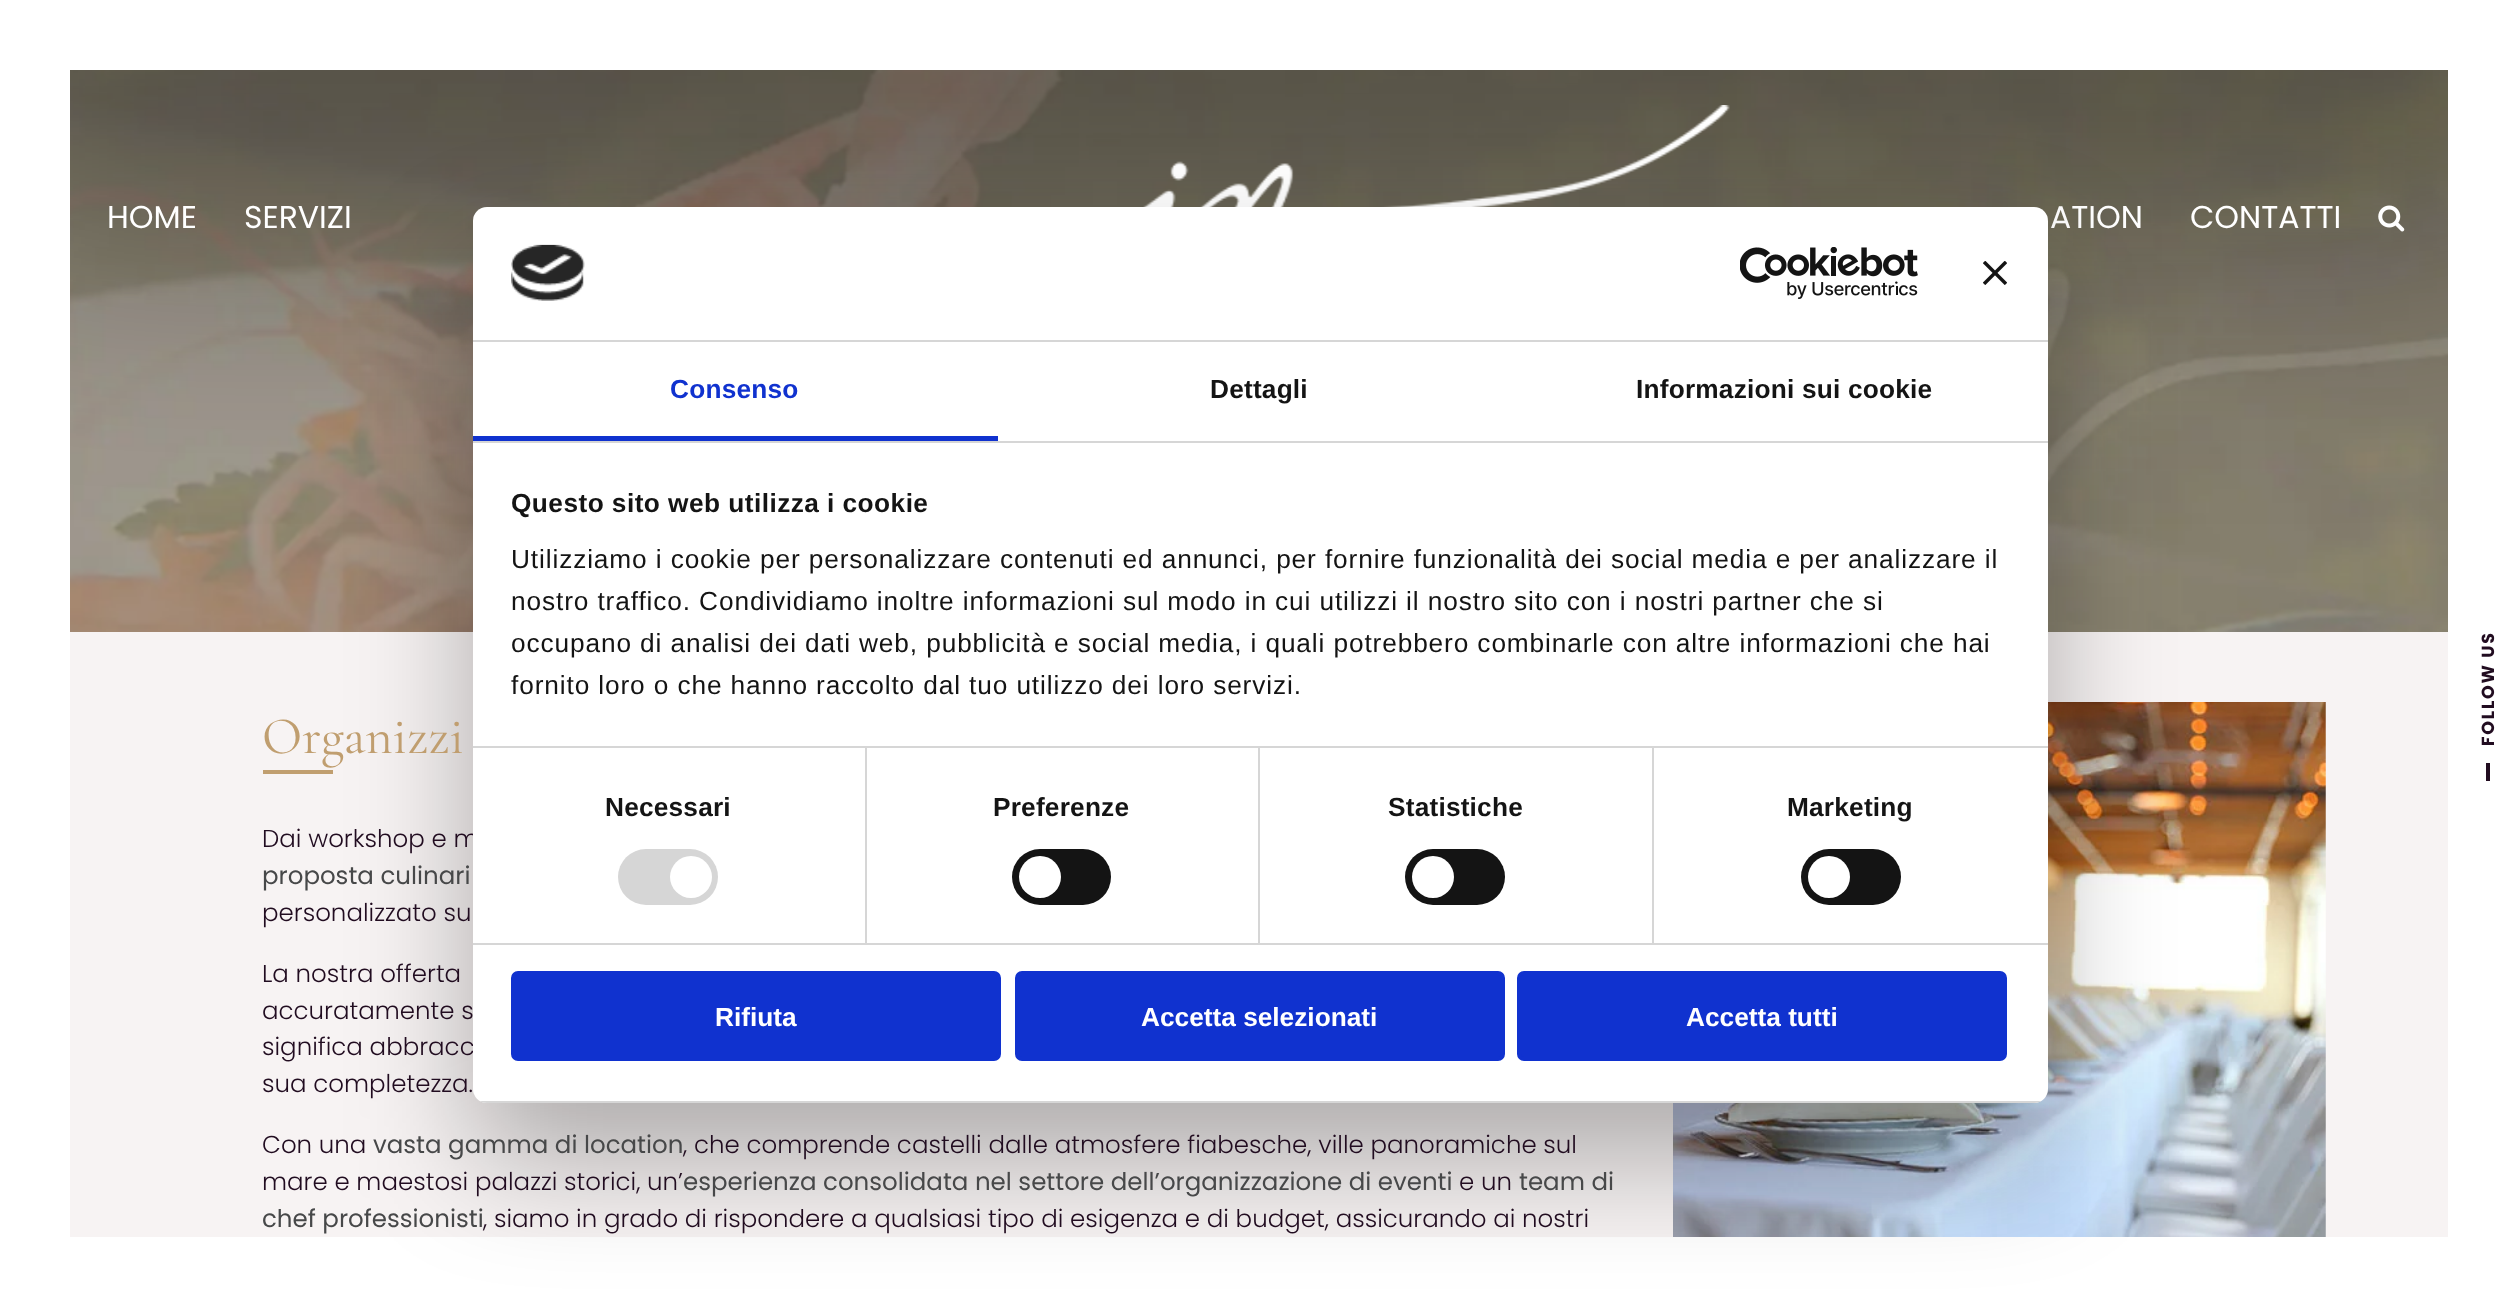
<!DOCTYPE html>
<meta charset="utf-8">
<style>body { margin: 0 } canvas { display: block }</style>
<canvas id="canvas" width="2517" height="1306"></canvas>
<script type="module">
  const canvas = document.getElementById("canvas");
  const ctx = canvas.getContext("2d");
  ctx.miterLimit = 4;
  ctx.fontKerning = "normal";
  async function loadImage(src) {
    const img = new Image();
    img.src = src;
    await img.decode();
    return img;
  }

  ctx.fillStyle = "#f7f3f3";
  ctx.fillRect(0, 0, 2517, 1306);
  ctx.drawImage(await loadImage("img6.png"), 70, 70, 2378, 562);
  ctx.fillStyle = "rgba(0, 0, 0, 0.4)";
  ctx.filter = "blur(132px)";
  ctx.beginPath();
  ctx.rect(-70, -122, 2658, 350);
  ctx.fill();
  ctx.filter = "none";
  ctx.fillStyle = "#ffffff";
  ctx.fillRect(70, 0, 2378, 70);
  ctx.fillRect(0, 0, 70, 1237);
  ctx.drawImage(await loadImage("img1.png"), 1143, 105, 587, 102);
  ctx.font = "31.5px Poppins";
  ctx.fillText("HOME", 107, 228);
  ctx.fillText("SERVIZI", 244, 228);
  ctx.fillText("ATION", 2050, 228);
  ctx.fillText("CONTATTI", 2190, 228);
  ctx.drawImage(await loadImage("img2.png"), 2378, 205, 27, 27);
  ctx.fillRect(2448, 0, 69, 1237);
  ctx.fillStyle = "#c09e6f";
  ctx.fillRect(263, 770, 70, 4);
  ctx.drawImage(await loadImage("img7.png"), 1673, 702, 653, 535);
  ctx.fillStyle = "#ffffff";
  ctx.fillRect(0, 1237, 2517, 69);
  ctx.fillStyle = "rgba(0, 0, 0, 0.3)";
  ctx.filter = "blur(59.5px)";
  ctx.beginPath();
  ctx.roundRect(473, 263, 1575, 896, 14);
  ctx.fill();
  ctx.filter = "none";
  ctx.font = "300 24.5px Poppins";
  ctx.fillStyle = "#210c20";
  ctx.fillText("Dai workshop e m", 262, 847);
  ctx.fillText("significa abbracc", 262, 1055);
  ctx.fillStyle = "#ffffff";
  ctx.beginPath();
  ctx.roundRect(473, 207, 1575, 896, 14);
  ctx.fill();
  ctx.fillStyle = "#d6d6d6";
  ctx.fillRect(473, 340, 1575, 2);
  ctx.drawImage(await loadImage("img3.png"), 511, 244, 74, 57);
  ctx.drawImage(await loadImage("img4.png"), 1740, 247, 178, 52);
  ctx.drawImage(await loadImage("img5.png"), 1983, 261, 24, 24);
  ctx.fillRect(473, 441, 1575, 2);
  ctx.fillStyle = "#1032cf";
  ctx.fillRect(473, 436, 525, 5);
  ctx.letterSpacing = "0.2px";
  ctx.font = "bold 26.25px Liberation Sans";
  ctx.fillText("Consenso", 670, 398);
  ctx.fillStyle = "#141414";
  ctx.fillText("Dettagli", 1210, 398);
  ctx.fillText("Informazioni sui cookie", 1636, 398);
  ctx.fillStyle = "#d6d6d6";
  ctx.fillRect(865, 747, 2, 196);
  ctx.fillRect(1258, 747, 2, 196);
  ctx.fillRect(1652, 747, 2, 196);
  ctx.fillRect(473, 746, 1575, 2);
  ctx.letterSpacing = "0.45px";
  ctx.fillStyle = "#141414";
  ctx.fillText("Questo sito web utilizza i cookie", 511, 512);
  ctx.letterSpacing = "0.88px";
  ctx.font = "26.25px Liberation Sans";
  ctx.fillText("Utilizziamo i cookie per personalizzare contenuti ed annunci, per fornire funzionalità dei social media e per analizzare il", 511, 568);
  ctx.fillText("nostro traffico. Condividiamo inoltre informazioni sul modo in cui utilizzi il nostro sito con i nostri partner che si", 511, 610);
  ctx.fillText("occupano di analisi dei dati web, pubblicità e social media, i quali potrebbero combinarle con altre informazioni che hai", 511, 652);
  ctx.fillText("fornito loro o che hanno raccolto dal tuo utilizzo dei loro servizi.", 511, 694);
  ctx.fillStyle = "#d6d6d6";
  ctx.fillRect(473, 943, 1575, 2);
  ctx.letterSpacing = "0.2px";
  ctx.font = "bold 26.25px Liberation Sans";
  ctx.fillStyle = "#141414";
  ctx.fillText("Necessari", 605, 816);
  ctx.fillStyle = "#d6d6d6";
  ctx.beginPath();
  ctx.roundRect(618, 849, 100, 56, 28);
  ctx.fill();
  ctx.fillStyle = "#ffffff";
  ctx.beginPath();
  ctx.arc(691, 877, 21, 0, Math.PI * 2);
  ctx.fill();
  ctx.fillStyle = "#141414";
  ctx.fillText("Preferenze", 993, 816);
  ctx.beginPath();
  ctx.roundRect(1012, 849, 99, 56, 28);
  ctx.fill();
  ctx.fillStyle = "#ffffff";
  ctx.beginPath();
  ctx.arc(1040, 877, 21, 0, Math.PI * 2);
  ctx.fill();
  ctx.fillStyle = "#141414";
  ctx.fillText("Statistiche", 1388, 816);
  ctx.beginPath();
  ctx.roundRect(1405, 849, 100, 56, 28);
  ctx.fill();
  ctx.fillStyle = "#ffffff";
  ctx.beginPath();
  ctx.arc(1433, 877, 21, 0, Math.PI * 2);
  ctx.fill();
  ctx.fillStyle = "#141414";
  ctx.fillText("Marketing", 1787, 816);
  ctx.beginPath();
  ctx.roundRect(1801, 849, 100, 56, 28);
  ctx.fill();
  ctx.fillStyle = "#ffffff";
  ctx.beginPath();
  ctx.arc(1829, 877, 21, 0, Math.PI * 2);
  ctx.fill();
  ctx.save();
  ctx.beginPath();
  ctx.roundRect(473, 207, 1575, 896, 14);
  ctx.clip();
  ctx.fillStyle = "#d6d6d6";
  ctx.fillRect(473, 1101, 1575, 2);
  ctx.restore();
  ctx.fillStyle = "#1032cf";
  ctx.beginPath();
  ctx.roundRect(513, 973, 486, 86, 5);
  ctx.fill();
  ctx.strokeStyle = "#1032cf";
  ctx.lineWidth = 4;
  ctx.stroke();
  ctx.letterSpacing = "0px";
  ctx.fillStyle = "#ffffff";
  ctx.fillText("Rifiuta", 715, 1026);
  ctx.fillStyle = "#1032cf";
  ctx.beginPath();
  ctx.roundRect(1017, 973, 486, 86, 5);
  ctx.fill();
  ctx.stroke();
  ctx.fillStyle = "#ffffff";
  ctx.fillText("Accetta selezionati", 1141, 1026);
  ctx.fillStyle = "#1032cf";
  ctx.beginPath();
  ctx.roundRect(1519, 973, 486, 86, 5);
  ctx.fill();
  ctx.stroke();
  ctx.fillStyle = "#ffffff";
  ctx.fillText("Accetta tutti", 1686, 1026);
  ctx.letterSpacing = "1.75px";
  ctx.font = "bold 17.5px Poppins";
  ctx.fillStyle = "#210c20";
  ctx.save();
  ctx.translate(2494, 746);
  ctx.rotate(-90 * Math.PI / 180);
  ctx.fillText("FOLLOW US", 0, 0);
  ctx.restore();
  ctx.fillRect(2486, 763, 4, 18);
  ctx.letterSpacing = "0px";
  ctx.font = "52.5px Cormorant Garamond";
  ctx.fillStyle = "#c09e6f";
  ctx.fillText("Organizzi", 262, 753);
  ctx.font = "24.5px Poppins";
  ctx.fillStyle = "#474849";
  ctx.fillText("proposta culinari", 262, 884);
  ctx.font = "300 24.5px Poppins";
  ctx.fillStyle = "#210c20";
  ctx.fillText("personalizzato su", 262, 921);
  ctx.fillText("La nostra offerta", 262, 982);
  ctx.fillText("accuratamente s", 262, 1019);
  ctx.fillText("sua completezza.", 262, 1092);
  ctx.fillText("Con una", 262, 1153);
  ctx.font = "24.5px Poppins";
  ctx.fillStyle = "#474849";
  ctx.fillText("vasta gamma di location", 373, 1153);
  ctx.font = "300 24.5px Poppins";
  ctx.fillStyle = "#210c20";
  ctx.fillText(", che comprende castelli dalle atmosfere fiabesche, ville panoramiche sul", 683, 1153);
  ctx.fillText("mare e maestosi palazzi storici, un’", 262, 1190);
  ctx.font = "24.5px Poppins";
  ctx.fillStyle = "#474849";
  ctx.fillText("esperienza consolidata nel settore dell’organizzazione di eventi", 683, 1190);
  ctx.font = "300 24.5px Poppins";
  ctx.fillStyle = "#210c20";
  ctx.fillText("e un", 1459, 1190);
  ctx.font = "24.5px Poppins";
  ctx.fillStyle = "#474849";
  ctx.fillText("team di", 1519, 1190);
  ctx.fillText("chef professionisti", 262, 1227);
  ctx.font = "300 24.5px Poppins";
  ctx.fillStyle = "#210c20";
  ctx.fillText(", siamo in grado di rispondere a qualsiasi tipo di esigenza e di budget, assicurando ai nostri", 483, 1227);
</script>
